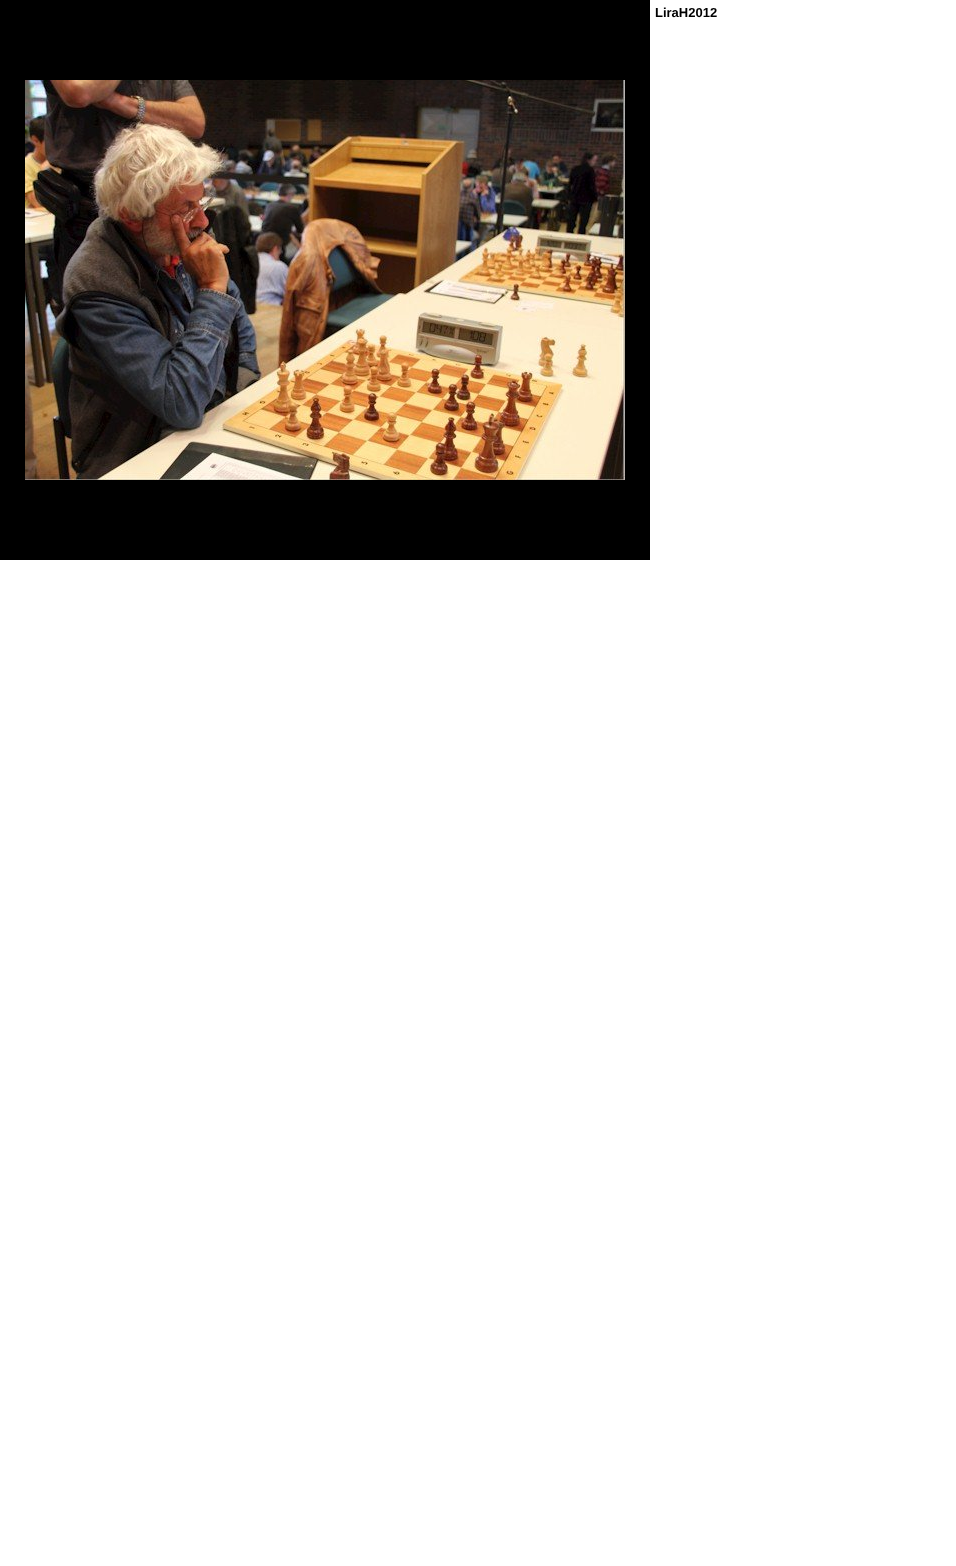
<!DOCTYPE html>
<meta charset="utf-8">
<style>body { margin: 0 } canvas { display: block }</style>
<canvas id="canvas" width="956" height="1566"></canvas>
<script type="module">
  const canvas = document.getElementById("canvas");
  const ctx = canvas.getContext("2d");
  ctx.miterLimit = 4;
  ctx.fontKerning = "normal";
  async function loadImage(src) {
    const img = new Image();
    img.src = src;
    await img.decode();
    return img;
  }

  ctx.fillStyle = "#ffffff";
  ctx.fillRect(0, 0, 956, 1566);
  ctx.fillStyle = "#000000";
  ctx.fillRect(0, 0, 650, 560);
  ctx.drawImage(await loadImage("img1.png"), 25, 80, 600, 400);
  ctx.font = "bold 13px Liberation Sans";
  ctx.fillText("LiraH2012", 655, 17);
</script>
